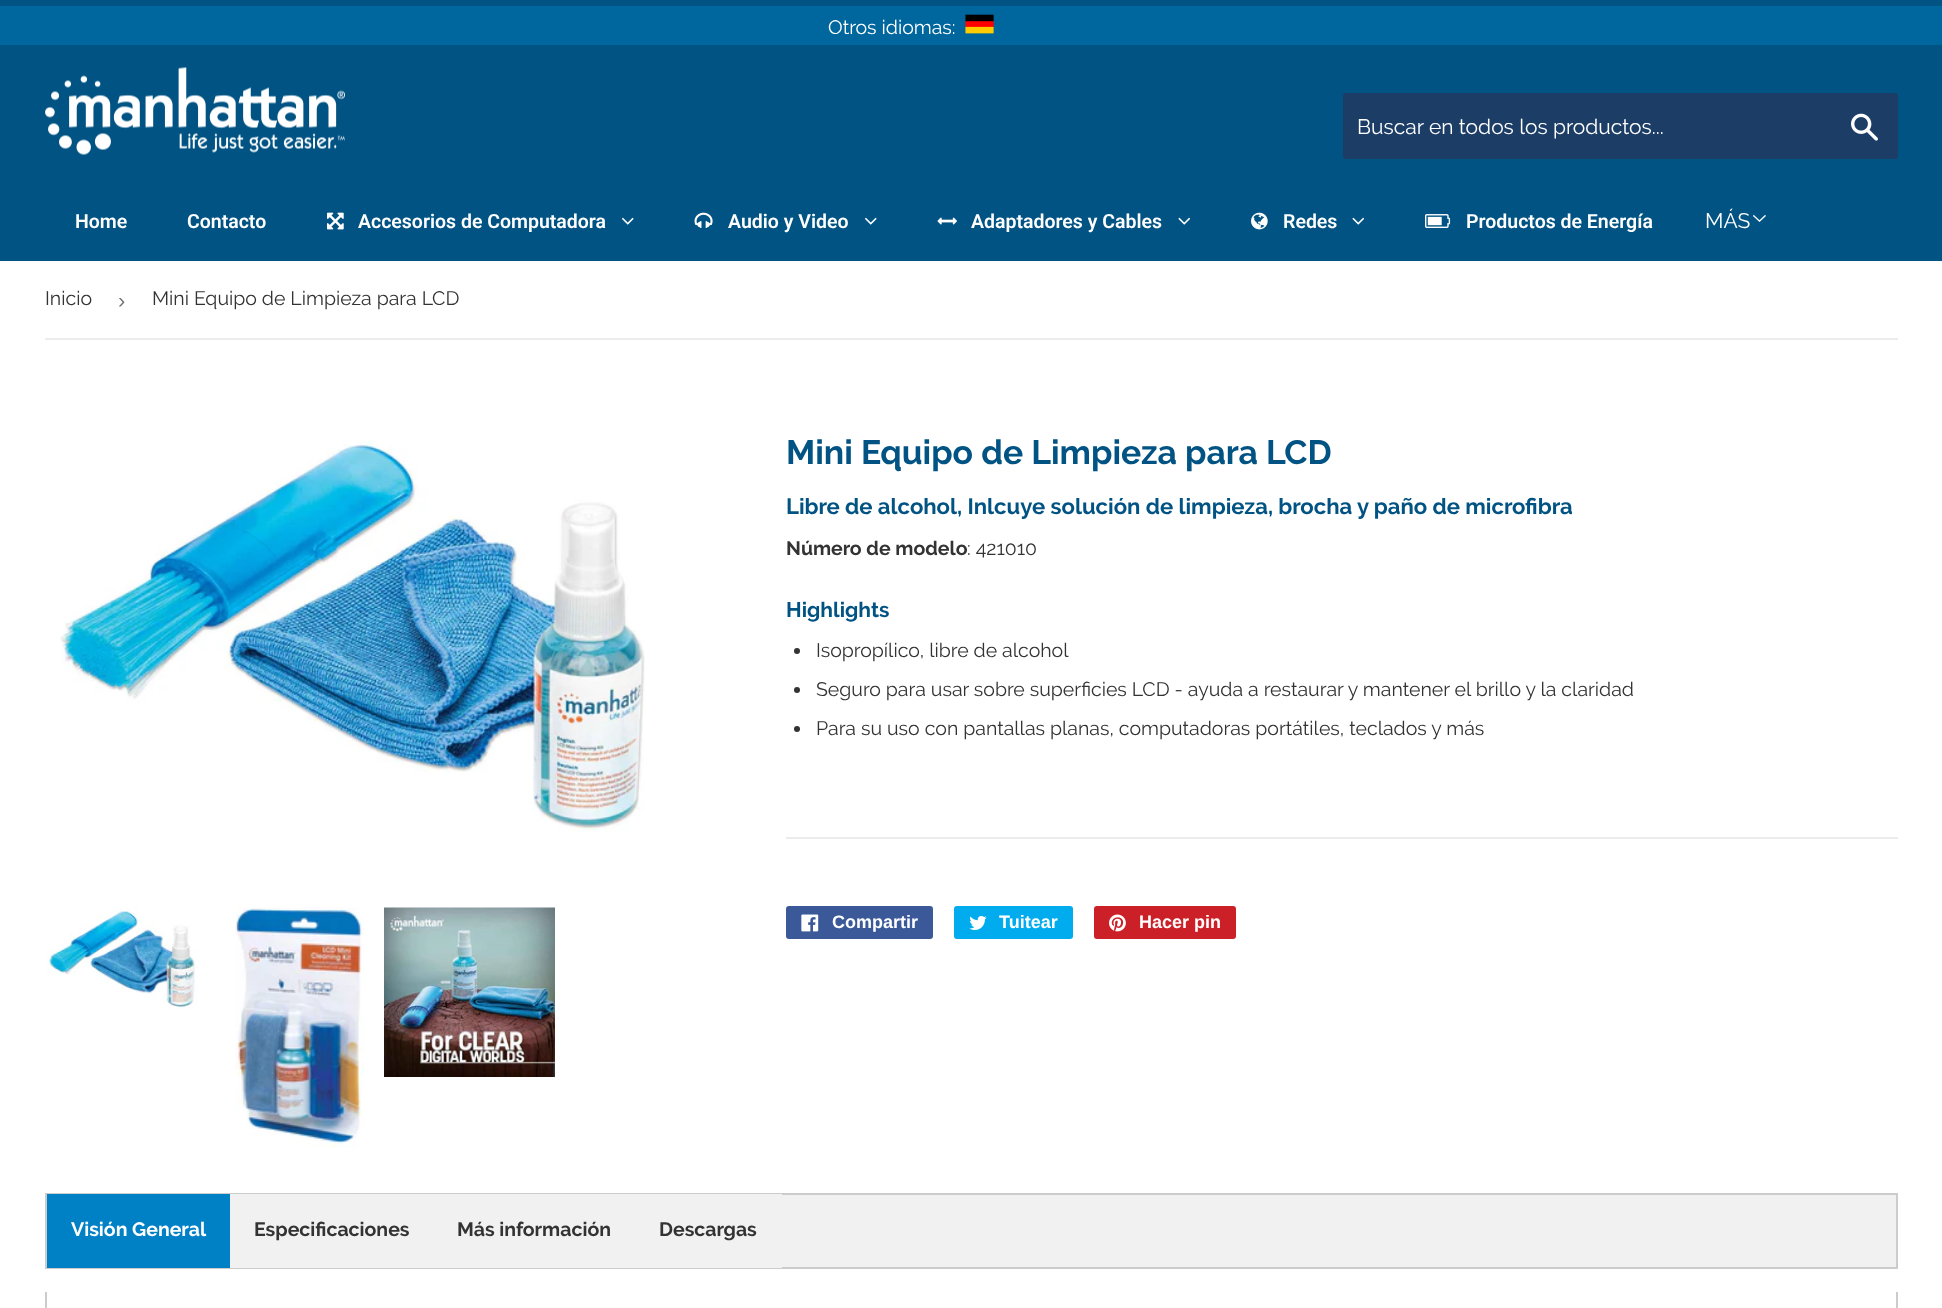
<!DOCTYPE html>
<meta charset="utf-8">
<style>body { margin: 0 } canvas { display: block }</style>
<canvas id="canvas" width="1942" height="1308"></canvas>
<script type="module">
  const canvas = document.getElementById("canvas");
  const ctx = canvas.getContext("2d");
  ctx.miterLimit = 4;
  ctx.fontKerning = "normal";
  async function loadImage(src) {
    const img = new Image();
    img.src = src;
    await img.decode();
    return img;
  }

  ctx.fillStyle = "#ffffff";
  ctx.fillRect(0, 0, 1942, 1308);
  ctx.fillStyle = "#005383";
  ctx.fillRect(0, 0, 1942, 261);
  ctx.fillStyle = "#00669e";
  ctx.fillRect(0, 6, 1942, 39);
  ctx.font = "19.5px Raleway";
  ctx.fillStyle = "#ffffff";
  ctx.fillText("Otros idiomas:", 828, 34);
  ctx.drawImage(await loadImage("img1.png"), 965, 14, 29, 20);
  ctx.drawImage(await loadImage("img2.png"), 45, 67, 300, 88);
  ctx.fillStyle = "#1c3d66";
  ctx.beginPath();
  ctx.roundRect(1343, 93, 555, 66, 3);
  ctx.fill();
  ctx.font = "21px Raleway";
  ctx.fillStyle = "#ffffff";
  ctx.fillText("Buscar en todos los productos...", 1357, 134);
  ctx.drawImage(await loadImage("img3.png"), 1851, 113, 27, 28);
  ctx.font = "600 19.5px Roboto";
  ctx.fillText("Home", 75, 228);
  ctx.fillText("Contacto", 187, 228);
  ctx.drawImage(await loadImage("img4.png"), 327, 212, 17, 18);
  ctx.fillText("Accesorios de Computadora", 358, 228);
  ctx.drawImage(await loadImage("img5.png"), 622, 217, 12, 8);
  ctx.drawImage(await loadImage("img6.png"), 694, 212, 19, 16);
  ctx.fillText("Audio y Video", 728, 228);
  ctx.drawImage(await loadImage("img5.png"), 865, 217, 12, 8);
  ctx.drawImage(await loadImage("img7.png"), 937, 217, 20, 8);
  ctx.fillText("Adaptadores y Cables", 971, 228);
  ctx.drawImage(await loadImage("img8.png"), 1178, 217, 12, 8);
  ctx.drawImage(await loadImage("img9.png"), 1251, 212, 17, 18);
  ctx.fillText("Redes", 1283, 228);
  ctx.drawImage(await loadImage("img8.png"), 1352, 217, 12, 8);
  ctx.drawImage(await loadImage("img10.png"), 1425, 214, 26, 14);
  ctx.fillText("Productos de Energía", 1466, 228);
  ctx.font = "21px Raleway";
  ctx.fillText("MÁS", 1705, 228);
  ctx.drawImage(await loadImage("img11.png"), 1753, 215, 13, 7);
  ctx.fillStyle = "#ececec";
  ctx.fillRect(45, 338, 1853, 2);
  ctx.font = "19.5px Raleway";
  ctx.fillStyle = "#333333";
  ctx.fillText("Inicio", 45, 305);
  ctx.font = "22px Liberation Sans";
  ctx.fillStyle = "#767676";
  ctx.fillText("›", 118, 308);
  ctx.font = "19.5px Raleway";
  ctx.fillStyle = "#333333";
  ctx.fillText("Mini Equipo de Limpieza para LCD", 152, 305);
  ctx.drawImage(await loadImage("img12.png"), 60, 439, 585, 393);
  ctx.drawImage(await loadImage("img13.png"), 47, 907, 151, 102);
  ctx.drawImage(await loadImage("img14.png"), 235, 907, 130, 241);
  ctx.drawImage(await loadImage("img15.png"), 384, 907, 171, 170);
  ctx.font = "bold 33.75px Raleway";
  ctx.fillStyle = "#005383";
  ctx.fillText("Mini Equipo de Limpieza para LCD", 786, 464);
  ctx.font = "bold 22.1px Raleway";
  ctx.fillText("Libre de alcohol, Inlcuye solución de limpieza, brocha y paño de microfibra", 786, 514);
  ctx.font = "bold 19.5px Raleway";
  ctx.fillStyle = "#333333";
  ctx.fillText("Número de modelo", 786, 555);
  ctx.font = "19.5px Raleway";
  ctx.fillText(": 421010", 967, 555);
  ctx.font = "bold 21px Raleway";
  ctx.fillStyle = "#005383";
  ctx.fillText("Highlights", 786, 617);
  ctx.fillStyle = "#333333";
  ctx.beginPath();
  ctx.arc(797, 651, 3, 0, Math.PI * 2);
  ctx.fill();
  ctx.font = "19.5px Raleway";
  ctx.fillText("Isopropílico, libre de alcohol", 816, 657);
  ctx.beginPath();
  ctx.arc(797, 690, 3, 0, Math.PI * 2);
  ctx.fill();
  ctx.fillText("Seguro para usar sobre superficies LCD - ayuda a restaurar y mantener el brillo y la claridad", 816, 696);
  ctx.beginPath();
  ctx.arc(797, 729, 3, 0, Math.PI * 2);
  ctx.fill();
  ctx.fillText("Para su uso con pantallas planas, computadoras portátiles, teclados y más", 816, 735);
  ctx.fillStyle = "#ececec";
  ctx.fillRect(786, 837, 1112, 2);
  ctx.fillStyle = "#3b5998";
  ctx.beginPath();
  ctx.roundRect(786, 906, 147, 33, 3);
  ctx.fill();
  ctx.drawImage(await loadImage("img16.png"), 801, 914, 18, 18);
  ctx.font = "bold 18px Liberation Sans";
  ctx.fillStyle = "#ffffff";
  ctx.fillText("Compartir", 832, 928);
  ctx.fillStyle = "#00aced";
  ctx.beginPath();
  ctx.roundRect(954, 906, 119, 33, 3);
  ctx.fill();
  ctx.drawImage(await loadImage("img17.png"), 969, 915, 18, 15);
  ctx.fillStyle = "#ffffff";
  ctx.fillText("Tuitear", 999, 928);
  ctx.fillStyle = "#cb2027";
  ctx.beginPath();
  ctx.roundRect(1094, 906, 142, 33, 3);
  ctx.fill();
  ctx.drawImage(await loadImage("img18.png"), 1109, 914, 17, 18);
  ctx.fillStyle = "#ffffff";
  ctx.fillText("Hacer pin", 1139, 928);
  ctx.fillStyle = "#f1f1f1";
  ctx.fillRect(782, 1195, 1114, 72);
  ctx.strokeStyle = "#cccccc";
  ctx.lineWidth = 2;
  ctx.strokeRect(46, 1194, 1851, 74);
  ctx.fillStyle = "#0081c6";
  ctx.fillRect(47, 1194, 183, 74);
  ctx.font = "bold 19.5px Raleway";
  ctx.fillStyle = "#ffffff";
  ctx.fillText("Visión General", 71, 1236);
  ctx.fillStyle = "#f1f1f1";
  ctx.fillRect(230, 1194, 552, 74);
  ctx.fillStyle = "#333333";
  ctx.fillText("Especificaciones", 254, 1236);
  ctx.fillText("Más información", 457, 1236);
  ctx.fillText("Descargas", 659, 1236);
  ctx.fillStyle = "#cccccc";
  ctx.fillRect(1896, 1292, 2, 16);
  ctx.fillRect(45, 1292, 2, 16);
</script>
